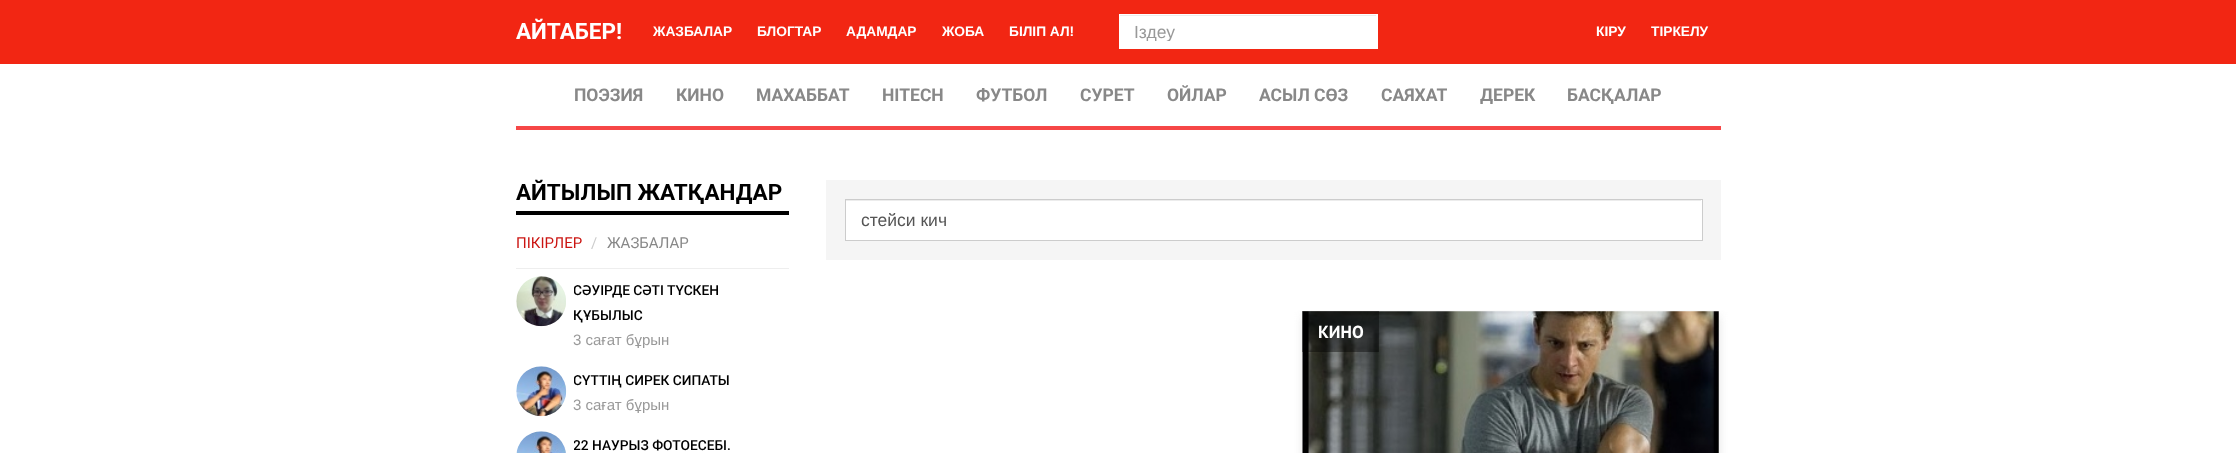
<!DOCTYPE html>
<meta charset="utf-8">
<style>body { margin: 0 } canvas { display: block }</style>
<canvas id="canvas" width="2236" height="453"></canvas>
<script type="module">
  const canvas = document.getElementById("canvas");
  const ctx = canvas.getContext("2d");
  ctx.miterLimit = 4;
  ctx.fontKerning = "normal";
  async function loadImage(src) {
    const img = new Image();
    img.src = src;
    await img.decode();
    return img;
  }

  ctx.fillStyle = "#ffffff";
  ctx.fillRect(0, 0, 2236, 453);
  ctx.fillStyle = "#f22613";
  ctx.fillRect(0, 0, 2236, 64);
  ctx.font = "bold 22.5px Roboto";
  ctx.fillStyle = "#ffffff";
  ctx.fillText("АЙТАБЕР!", 516, 39);
  ctx.font = "bold 13.75px Liberation Sans";
  ctx.fillText("ЖАЗБАЛАР", 653, 36);
  ctx.fillText("БЛОГТАР", 757, 36);
  ctx.fillText("АДАМДАР", 846, 36);
  ctx.fillText("ЖОБА", 942, 36);
  ctx.fillText("БІЛІП АЛ!", 1009, 36);
  ctx.fillRect(1119, 14, 259, 35);
  ctx.fillStyle = "#ececec";
  ctx.fillRect(1120, 15, 256, 1);
  ctx.save();
  ctx.beginPath();
  ctx.rect(1135, 21, 226, 20);
  ctx.clip();
  ctx.font = "17.5px Liberation Sans";
  ctx.fillStyle = "#999999";
  ctx.fillText("Іздеу", 1134, 38);
  ctx.restore();
  ctx.fillStyle = "#ffffff";
  ctx.fillText("КІРУ", 1596, 36);
  ctx.fillText("ТІРКЕЛУ", 1651, 36);
  ctx.fillStyle = "#f64747";
  ctx.fillRect(516, 126, 1205, 4);
  ctx.font = "bold 17.5px Roboto";
  ctx.fillStyle = "#888888";
  ctx.fillText("ПОЭЗИЯ", 574, 101);
  ctx.fillText("КИНО", 676, 101);
  ctx.fillText("МАХАББАТ", 756, 101);
  ctx.fillText("HITECH", 882, 101);
  ctx.fillText("ФУТБОЛ", 976, 101);
  ctx.fillText("СУРЕТ", 1080, 101);
  ctx.fillText("ОЙЛАР", 1167, 101);
  ctx.fillText("АСЫЛ СӨЗ", 1259, 101);
  ctx.fillText("САЯХАТ", 1381, 101);
  ctx.fillText("ДЕРЕК", 1480, 101);
  ctx.fillText("БАСҚАЛАР", 1567, 101);
  ctx.fillStyle = "#000000";
  ctx.fillRect(516, 211, 273, 4);
  ctx.font = "bold 22.5px Roboto";
  ctx.fillText("АЙТЫЛЫП ЖАТҚАНДАР", 516, 200);
  ctx.font = "15px Roboto";
  ctx.fillStyle = "#cb1411";
  ctx.fillText("ПІКІРЛЕР", 516, 248);
  ctx.fillStyle = "#cccccc";
  ctx.fillText("/", 591, 248);
  ctx.fillStyle = "#888888";
  ctx.fillText("ЖАЗБАЛАР", 607, 248);
  ctx.fillStyle = "#eeeeee";
  ctx.fillRect(516, 268, 273, 1);
  ctx.drawImage(await loadImage("img1.png"), 516, 276, 50, 51);
  ctx.save();
  ctx.beginPath();
  ctx.rect(574, 276, 215, 75);
  ctx.clip();
  ctx.font = "500 13.75px Roboto";
  ctx.fillStyle = "#000000";
  ctx.fillText("СӘУІРДЕ СӘТІ ТҮСКЕН", 573, 295);
  ctx.restore();
  ctx.font = "500 13.75px Roboto";
  ctx.fillStyle = "#000000";
  ctx.fillText("ҚҰБЫЛЫС", 573, 320);
  ctx.font = "15px Liberation Sans";
  ctx.fillStyle = "#999999";
  ctx.fillText("3 сағат бұрын", 573, 345);
  ctx.drawImage(await loadImage("img2.png"), 516, 366, 51, 51);
  ctx.save();
  ctx.beginPath();
  ctx.rect(574, 366, 215, 50);
  ctx.clip();
  ctx.font = "500 13.75px Roboto";
  ctx.fillStyle = "#000000";
  ctx.fillText("СҮТТІҢ СИРЕК СИПАТЫ", 573, 385);
  ctx.restore();
  ctx.fillText("3 сағат бұрын", 573, 410);
  ctx.drawImage(await loadImage("img3.png"), 516, 431, 50, 22);
  ctx.save();
  ctx.beginPath();
  ctx.rect(574, 431, 215, 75);
  ctx.clip();
  ctx.font = "500 13.75px Roboto";
  ctx.fillStyle = "#000000";
  ctx.fillText("22 НАУРЫЗ ФОТОЕСЕБІ.", 573, 450);
  ctx.restore();
  ctx.fillStyle = "#f5f5f5";
  ctx.fillRect(826, 180, 895, 80);
  ctx.fillStyle = "#ffffff";
  ctx.fillRect(846, 200, 856, 40);
  ctx.fillStyle = "#ececec";
  ctx.fillRect(846, 200, 855, 1);
  ctx.strokeStyle = "#cccccc";
  ctx.strokeRect(845.5, 199.5, 857, 41);
  ctx.font = "17.5px Liberation Sans";
  ctx.fillStyle = "#555555";
  ctx.fillText("стейси кич", 861, 226);
  ctx.save();
  ctx.beginPath();
  ctx.rect(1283, 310, 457, 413);
  ctx.clip();
  ctx.fillStyle = "#e2e2e2";
  ctx.filter = "blur(5px)";
  ctx.beginPath();
  ctx.rect(1303, 316, 416, 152);
  ctx.fill();
  ctx.filter = "none";
  ctx.restore();
  ctx.drawImage(await loadImage("img4.png"), 1302, 311, 417, 142);
  ctx.fillStyle = "rgba(0, 0, 0, 0.4)";
  ctx.fillRect(1302, 311, 77, 41);
  ctx.font = "bold 17.5px PT Sans";
  ctx.fillStyle = "#ffffff";
  ctx.fillText("КИНО", 1318, 338);
</script>
